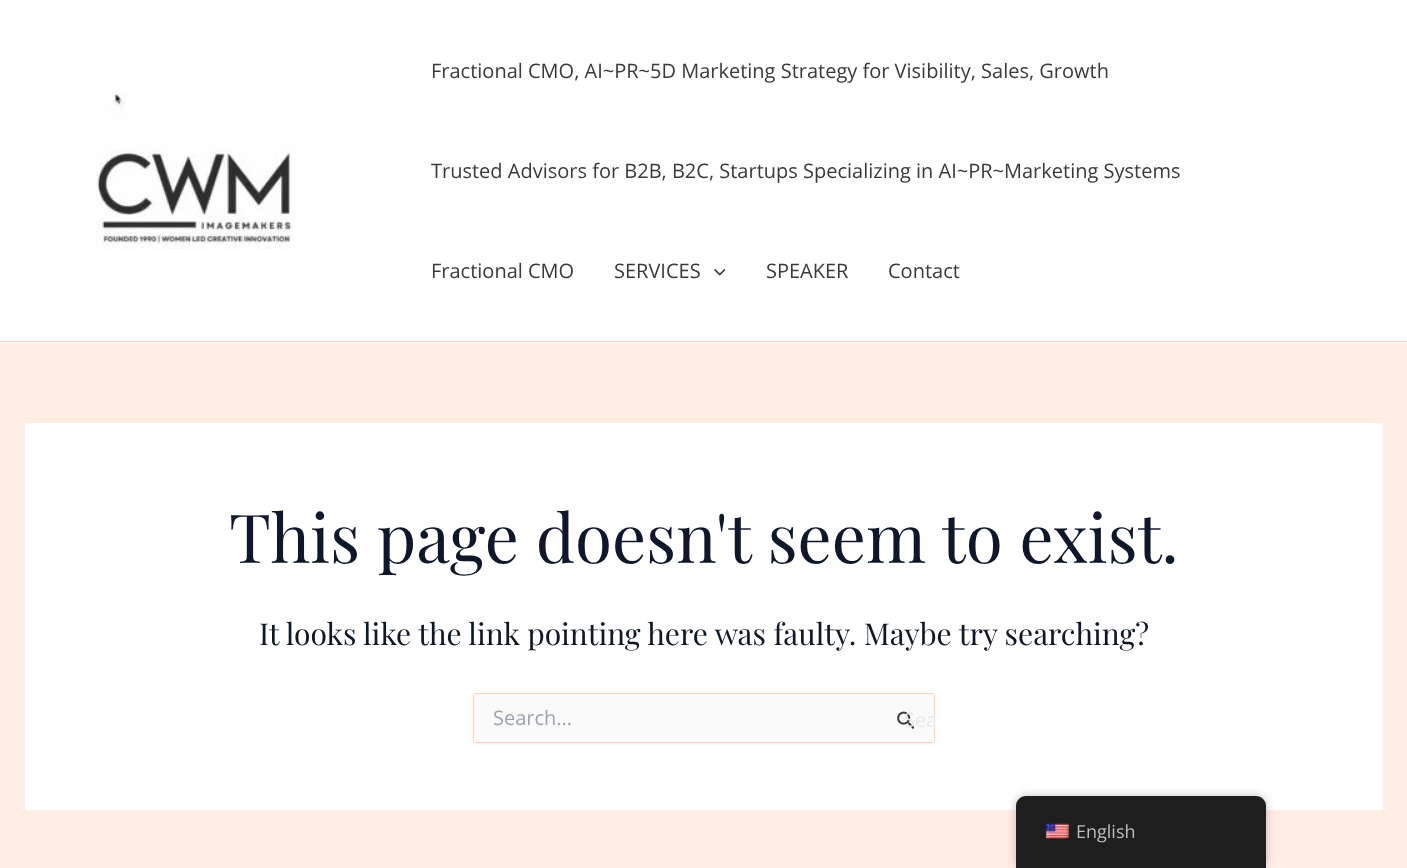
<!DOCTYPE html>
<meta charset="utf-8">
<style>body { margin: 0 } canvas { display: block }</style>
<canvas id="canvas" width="1407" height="868"></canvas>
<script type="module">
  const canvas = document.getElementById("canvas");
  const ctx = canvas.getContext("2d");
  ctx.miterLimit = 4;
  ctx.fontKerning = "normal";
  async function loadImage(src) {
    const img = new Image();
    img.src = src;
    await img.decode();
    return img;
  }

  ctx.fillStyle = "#ffede6";
  ctx.fillRect(0, 0, 1407, 868);
  ctx.fillStyle = "#ffffff";
  ctx.fillRect(0, 0, 1407, 343);
  ctx.fillStyle = "#ffd1bf";
  ctx.fillRect(0, 341, 1407, 1);
  ctx.drawImage(await loadImage("img1.png"), 96, 90, 199, 160);
  ctx.font = "20px Open Sans";
  ctx.fillStyle = "#3a3a3a";
  ctx.fillText("Fractional CMO, AI~PR~5D Marketing Strategy for Visibility, Sales, Growth", 431, 78);
  ctx.fillText("Trusted Advisors for B2B, B2C, Startups Specializing in AI~PR~Marketing Systems", 431, 178);
  ctx.fillText("Fractional CMO", 431, 278);
  ctx.fillText("SERVICES", 614, 278);
  ctx.drawImage(await loadImage("img2.png"), 714, 268, 11, 8);
  ctx.fillText("SPEAKER", 766, 278);
  ctx.fillText("Contact", 888, 278);
  ctx.fillStyle = "#ffffff";
  ctx.fillRect(25, 423, 1358, 387);
  ctx.font = "67.5px Playfair Display";
  ctx.fillStyle = "#0f172a";
  ctx.fillText("This page doesn't seem to exist.", 229, 563);
  ctx.font = "30px Playfair Display";
  ctx.fillText("It looks like the link pointing here was faulty. Maybe try searching?", 259, 645);
  ctx.fillStyle = "rgba(0, 0, 0, 0.05)";
  ctx.filter = "blur(1px)";
  ctx.beginPath();
  ctx.roundRect(473, 694, 462, 50, 2.5);
  ctx.fill();
  ctx.filter = "none";
  ctx.fillStyle = "#fafafa";
  ctx.beginPath();
  ctx.roundRect(473.5, 693.5, 461, 49, 2);
  ctx.fill();
  ctx.strokeStyle = "#ffd1bf";
  ctx.stroke();
  ctx.font = "20px Open Sans";
  ctx.fillStyle = "#9ca3af";
  ctx.fillText("Search...", 493, 725);
  ctx.drawImage(await loadImage("img3.png"), 897, 711, 17, 18);
  ctx.save();
  ctx.beginPath();
  ctx.roundRect(879, 693, 56, 52, 2.5);
  ctx.clip();
  ctx.fillStyle = "#ebe9e8";
  ctx.fillText("Sea", 904, 727);
  ctx.restore();
  ctx.fillStyle = "rgba(0, 0, 0, 0.25)";
  ctx.filter = "blur(5px)";
  ctx.beginPath();
  ctx.roundRect(1016, 796, 250, 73, 10);
  ctx.fill();
  ctx.filter = "none";
  ctx.fillStyle = "#1e1e1e";
  ctx.beginPath();
  ctx.moveTo(1026, 796);
  ctx.lineTo(1256, 796);
  ctx.bezierCurveTo(1261.5, 796, 1266, 800.5, 1266, 806);
  ctx.lineTo(1266, 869);
  ctx.lineTo(1016, 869);
  ctx.lineTo(1016, 806);
  ctx.bezierCurveTo(1016, 800.5, 1020.5, 796, 1026, 796);
  ctx.closePath();
  ctx.fill();
  ctx.drawImage(await loadImage("img4.png"), 1046, 823, 23, 16);
  ctx.font = "18px Open Sans";
  ctx.fillStyle = "#bdbdbd";
  ctx.fillText("English", 1076, 838);
</script>
